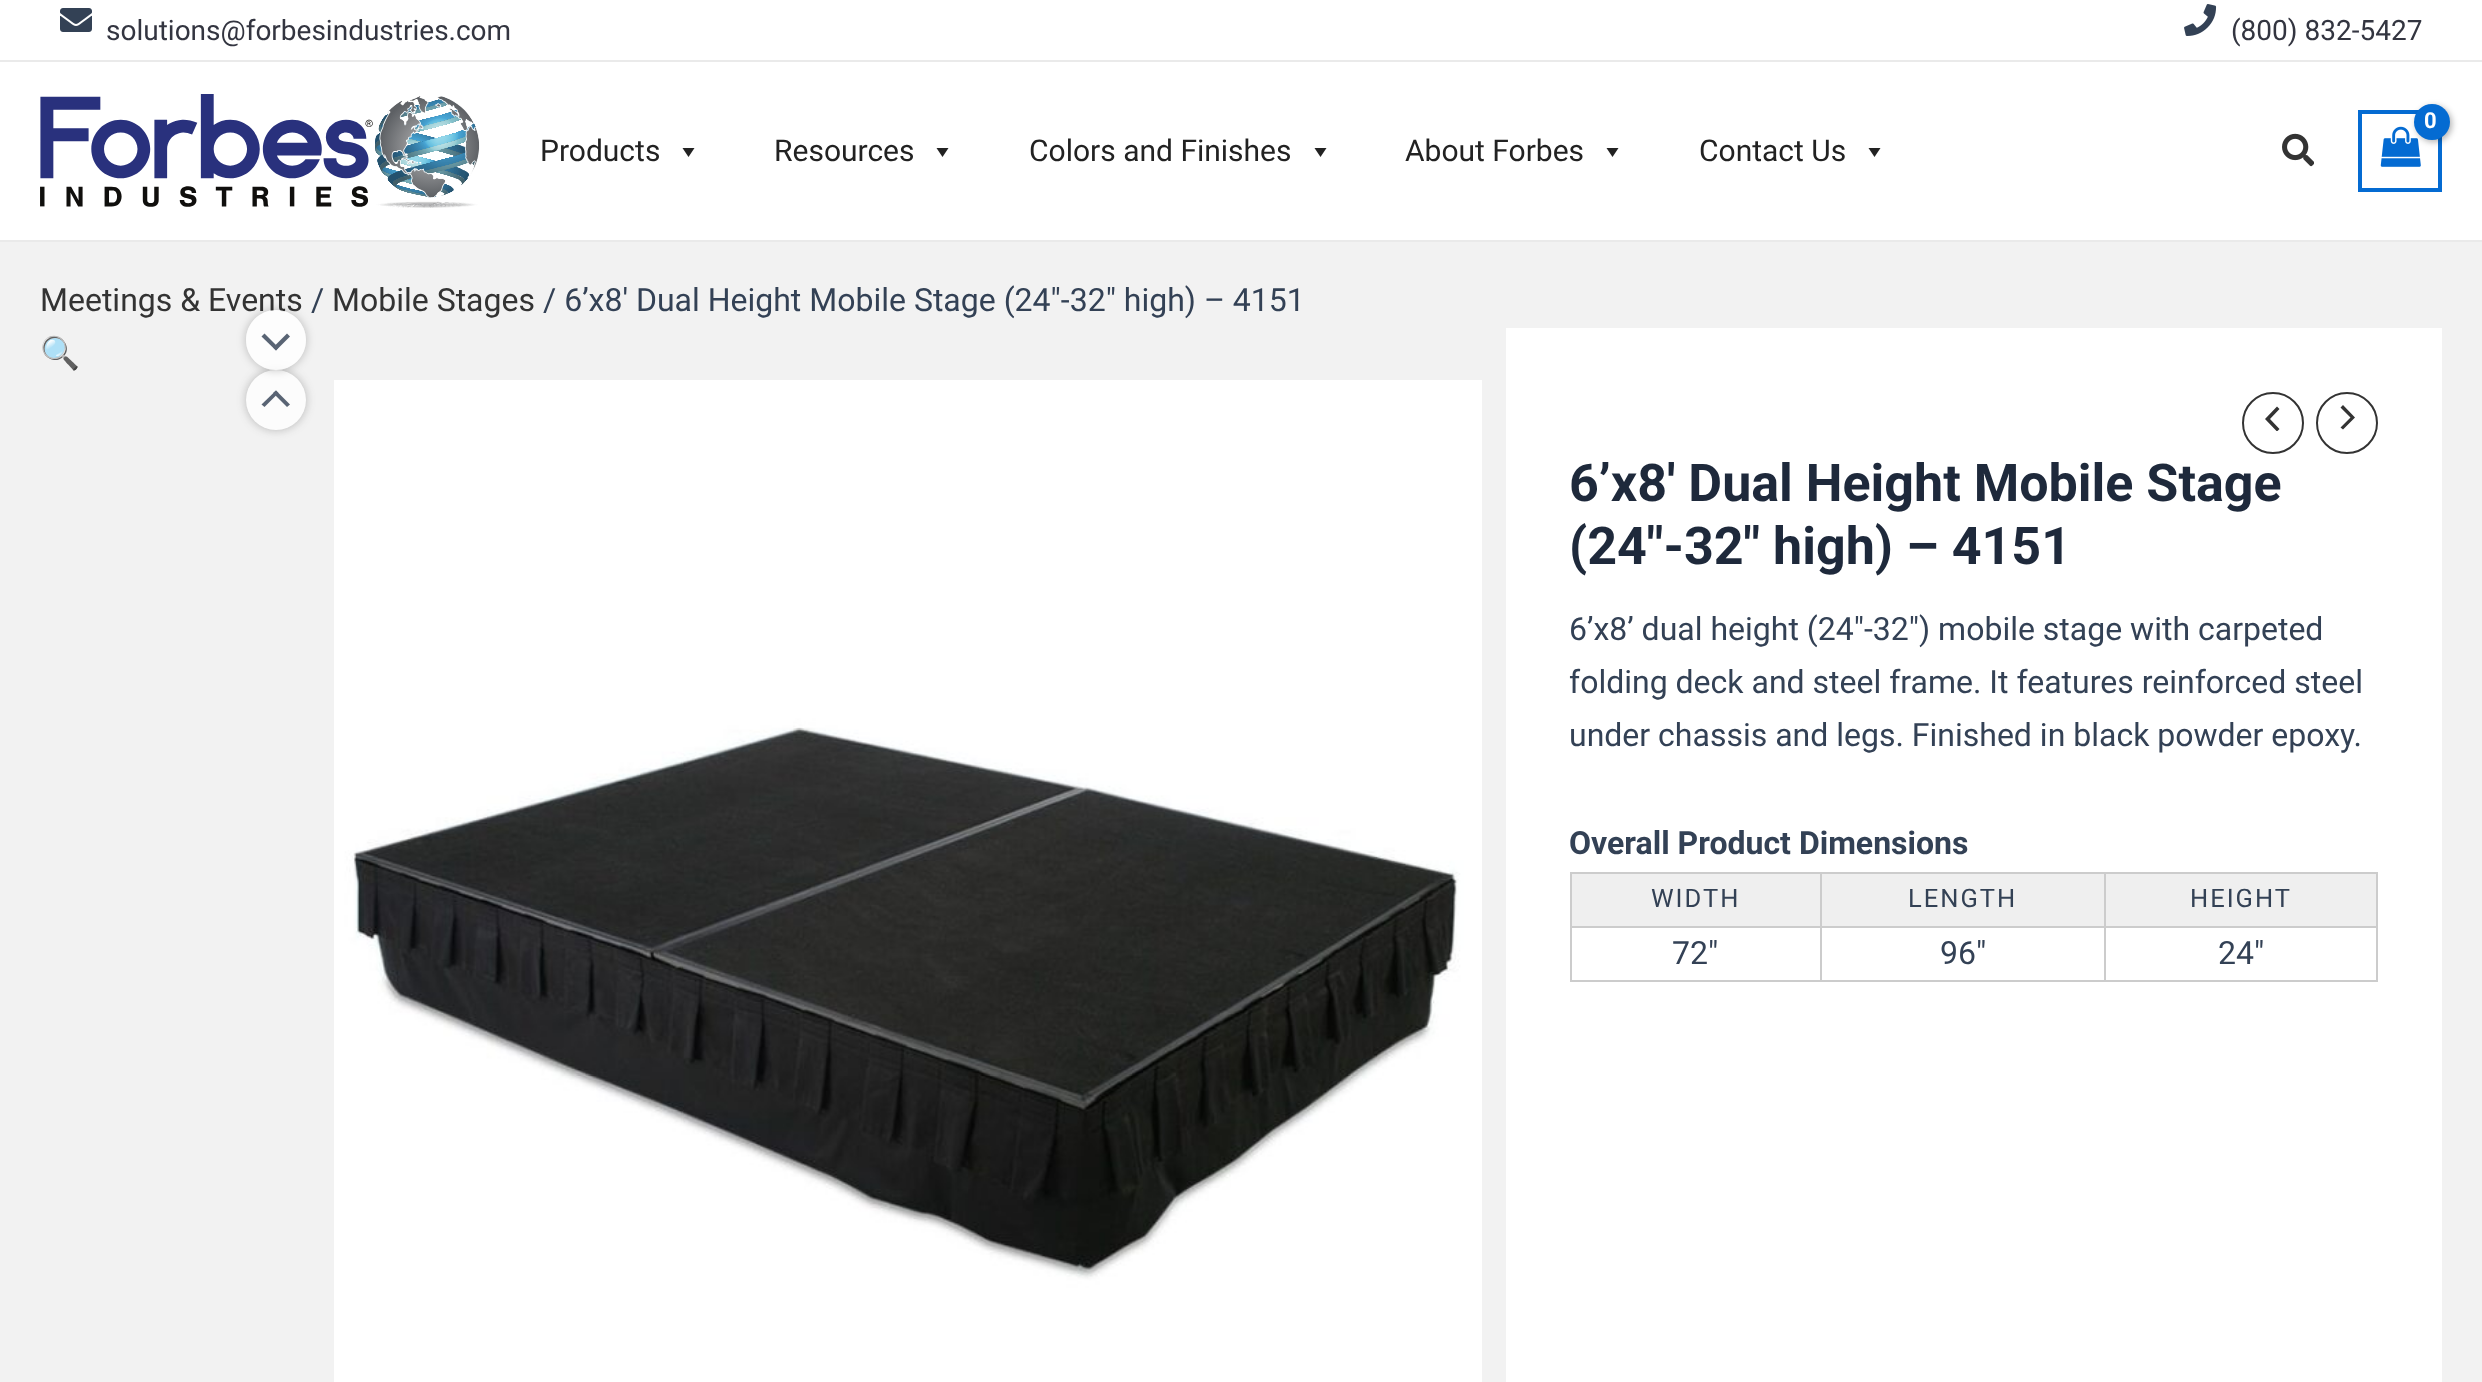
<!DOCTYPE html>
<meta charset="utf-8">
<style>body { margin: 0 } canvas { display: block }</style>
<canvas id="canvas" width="2482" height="1382"></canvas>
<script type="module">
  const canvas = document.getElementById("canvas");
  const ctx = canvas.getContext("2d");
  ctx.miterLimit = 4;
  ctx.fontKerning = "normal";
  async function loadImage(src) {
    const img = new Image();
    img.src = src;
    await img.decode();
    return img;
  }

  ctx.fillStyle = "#f2f2f2";
  ctx.fillRect(0, 0, 2482, 1382);
  ctx.fillStyle = "#ffffff";
  ctx.fillRect(0, 0, 2482, 60);
  ctx.fillStyle = "#eaeaea";
  ctx.fillRect(0, 60, 2482, 2);
  ctx.drawImage(await loadImage("img1.png"), 60, 8, 32, 24);
  ctx.font = "28px Roboto";
  ctx.fillStyle = "#333540";
  ctx.fillText("solutions@forbesindustries.com", 106, 40);
  ctx.drawImage(await loadImage("img2.png"), 2184, 4, 33, 32);
  ctx.fillText("(800) 832-5427", 2231, 40);
  ctx.fillStyle = "#ffffff";
  ctx.fillRect(0, 62, 2482, 178);
  ctx.fillStyle = "#eaeaea";
  ctx.fillRect(0, 240, 2482, 2);
  ctx.strokeStyle = "#046bd2";
  ctx.lineWidth = 4;
  ctx.strokeRect(2360, 112, 80, 78);
  ctx.drawImage(await loadImage("img3.png"), 2380, 126, 41, 41);
  ctx.fillStyle = "rgba(0, 0, 0, 0.3)";
  ctx.filter = "blur(3px)";
  ctx.beginPath();
  ctx.roundRect(2416, 106, 36, 36, 18);
  ctx.fill();
  ctx.filter = "none";
  ctx.fillStyle = "#046bd2";
  ctx.beginPath();
  ctx.arc(2432, 122, 18, 0, Math.PI * 2);
  ctx.fill();
  ctx.letterSpacing = "-1px";
  ctx.font = "bold 22px Roboto";
  ctx.fillStyle = "#ffffff";
  ctx.fillText("0", 2424, 128);
  ctx.drawImage(await loadImage("img4.png"), 2282, 133, 32, 34);
  ctx.drawImage(await loadImage("img5.png"), 40, 94, 440, 114);
  ctx.letterSpacing = "0px";
  ctx.font = "30px Roboto";
  ctx.fillStyle = "#222222";
  ctx.fillText("Products", 540, 161);
  ctx.beginPath();
  ctx.moveTo(694.5, 148);
  ctx.lineTo(688.5, 157);
  ctx.lineTo(682.5, 148);
  ctx.closePath();
  ctx.fill();
  ctx.fillText("Resources", 774, 161);
  ctx.beginPath();
  ctx.moveTo(948.5, 148);
  ctx.lineTo(942.5, 157);
  ctx.lineTo(936.5, 148);
  ctx.closePath();
  ctx.fill();
  ctx.fillText("Colors and Finishes", 1029, 161);
  ctx.beginPath();
  ctx.moveTo(1326.5, 148);
  ctx.lineTo(1320.5, 157);
  ctx.lineTo(1314.5, 148);
  ctx.closePath();
  ctx.fill();
  ctx.fillText("About Forbes", 1405, 161);
  ctx.beginPath();
  ctx.moveTo(1618.5, 148);
  ctx.lineTo(1612.5, 157);
  ctx.lineTo(1606.5, 148);
  ctx.closePath();
  ctx.fill();
  ctx.fillText("Contact Us", 1699, 161);
  ctx.beginPath();
  ctx.moveTo(1880.5, 148);
  ctx.lineTo(1874.5, 157);
  ctx.lineTo(1868.5, 148);
  ctx.closePath();
  ctx.fill();
  ctx.font = "32px Roboto";
  ctx.fillStyle = "#333333";
  ctx.fillText("Meetings & Events", 40, 311);
  ctx.fillStyle = "#334155";
  ctx.fillText("/", 311, 311);
  ctx.fillStyle = "#333333";
  ctx.fillText("Mobile Stages", 332, 311);
  ctx.fillStyle = "#334155";
  ctx.fillText("/ 6’x8′ Dual Height Mobile Stage (24″-32″ high) – 4151", 543, 311);
  ctx.font = "32px Noto Color Emoji";
  ctx.fillStyle = "#333333";
  ctx.fillText("🔍", 40, 364);
  ctx.fillStyle = "rgba(48, 48, 48, 0.3)";
  ctx.filter = "blur(5px)";
  ctx.beginPath();
  ctx.roundRect(246, 370, 60, 60, 30);
  ctx.fill();
  ctx.filter = "none";
  ctx.fillStyle = "#fcfcfc";
  ctx.beginPath();
  ctx.arc(276, 400, 30, 0, Math.PI * 2);
  ctx.fill();
  ctx.save();
  ctx.beginPath();
  ctx.moveTo(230, 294);
  ctx.lineTo(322, 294);
  ctx.lineTo(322, 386);
  ctx.lineTo(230, 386);
  ctx.closePath();
  ctx.moveTo(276, 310);
  ctx.bezierCurveTo(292.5, 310, 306, 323.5, 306, 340);
  ctx.bezierCurveTo(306, 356.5, 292.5, 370, 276, 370);
  ctx.bezierCurveTo(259.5, 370, 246, 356.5, 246, 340);
  ctx.bezierCurveTo(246, 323.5, 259.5, 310, 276, 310);
  ctx.closePath();
  ctx.clip("evenodd");
  ctx.fillStyle = "rgba(0, 0, 0, 0.24)";
  ctx.filter = "blur(5px)";
  ctx.beginPath();
  ctx.roundRect(246, 310, 60, 60, 30);
  ctx.fill();
  ctx.filter = "none";
  ctx.restore();
  ctx.fillStyle = "rgba(255, 255, 255, 0.8)";
  ctx.beginPath();
  ctx.arc(276, 340, 30, 0, Math.PI * 2);
  ctx.fill();
  ctx.fillStyle = "#596474";
  ctx.beginPath();
  ctx.moveTo(276, 350.5);
  ctx.lineTo(261.5, 336.5);
  ctx.lineTo(264.5, 333.5);
  ctx.lineTo(278.5, 347.5);
  ctx.closePath();
  ctx.fill();
  ctx.beginPath();
  ctx.moveTo(276, 350.5);
  ctx.lineTo(273, 347.5);
  ctx.lineTo(287, 333.5);
  ctx.lineTo(290, 336.5);
  ctx.closePath();
  ctx.fill();
  ctx.beginPath();
  ctx.moveTo(276, 390.5);
  ctx.lineTo(290, 404.5);
  ctx.lineTo(287, 407);
  ctx.lineTo(273, 393);
  ctx.closePath();
  ctx.fill();
  ctx.beginPath();
  ctx.moveTo(276, 390.5);
  ctx.lineTo(278.5, 393);
  ctx.lineTo(264.5, 407);
  ctx.lineTo(261.5, 404.5);
  ctx.closePath();
  ctx.fill();
  ctx.drawImage(await loadImage("img6.png"), 334, 380, 1148, 1002);
  ctx.fillStyle = "#ffffff";
  ctx.fillRect(1506, 328, 936, 1054);
  ctx.beginPath();
  ctx.arc(2273, 423, 30, 0, Math.PI * 2);
  ctx.strokeStyle = "#333333";
  ctx.lineWidth = 2;
  ctx.stroke();
  ctx.fillStyle = "#333333";
  ctx.beginPath();
  ctx.moveTo(2277, 406.5);
  ctx.lineTo(2279.5, 409);
  ctx.lineTo(2270, 419);
  ctx.lineTo(2279.5, 429);
  ctx.lineTo(2277.5, 431);
  ctx.lineTo(2276.5, 431);
  ctx.lineTo(2265, 419);
  ctx.closePath();
  ctx.fill();
  ctx.beginPath();
  ctx.arc(2347, 423, 30, 0, Math.PI * 2);
  ctx.stroke();
  ctx.beginPath();
  ctx.moveTo(2343, 429.5);
  ctx.lineTo(2355, 417.5);
  ctx.lineTo(2343, 405);
  ctx.lineTo(2340.5, 407.5);
  ctx.lineTo(2350.5, 417.5);
  ctx.lineTo(2340.5, 427.5);
  ctx.closePath();
  ctx.fill();
  ctx.font = "bold 52px Roboto";
  ctx.fillStyle = "#1e293b";
  ctx.fillText("6’x8′ Dual Height Mobile Stage", 1569, 501);
  ctx.fillText("(24″-32″ high) – 4151", 1569, 564);
  ctx.font = "32px Roboto";
  ctx.fillStyle = "#334155";
  ctx.fillText("6’x8’ dual height (24″-32″) mobile stage with carpeted", 1569, 640);
  ctx.fillText("folding deck and steel frame. It features reinforced steel", 1569, 693);
  ctx.fillText("under chassis and legs. Finished in black powder epoxy.", 1569, 746);
  ctx.font = "bold 32px Roboto";
  ctx.fillText("Overall Product Dimensions", 1569, 854);
  ctx.fillStyle = "#efefef";
  ctx.fillRect(1572, 874, 248, 52);
  ctx.fillStyle = "#cccccc";
  ctx.fillRect(2104, 872, 274, 2);
  ctx.fillRect(2104, 926, 274, 2);
  ctx.fillRect(2376, 926, 2, 56);
  ctx.fillRect(2104, 980, 274, 2);
  ctx.fillRect(2104, 926, 2, 56);
  ctx.fillRect(1820, 926, 286, 2);
  ctx.fillRect(2104, 872, 2, 56);
  ctx.fillRect(1820, 872, 286, 2);
  ctx.fillRect(1820, 980, 286, 2);
  ctx.fillRect(1820, 926, 2, 56);
  ctx.fillRect(1570, 926, 252, 2);
  ctx.fillRect(1820, 872, 2, 56);
  ctx.fillRect(1570, 872, 252, 2);
  ctx.fillRect(1570, 980, 252, 2);
  ctx.fillRect(1570, 926, 2, 56);
  ctx.fillRect(1570, 872, 2, 56);
  ctx.letterSpacing = "2px";
  ctx.font = "25.5px Roboto";
  ctx.fillStyle = "#334155";
  ctx.fillText("WIDTH", 1651, 907);
  ctx.fillStyle = "#efefef";
  ctx.fillRect(1822, 874, 282, 52);
  ctx.fillStyle = "#334155";
  ctx.fillText("LENGTH", 1908, 907);
  ctx.fillStyle = "#efefef";
  ctx.fillRect(2106, 874, 270, 52);
  ctx.fillStyle = "#cccccc";
  ctx.fillRect(2376, 872, 2, 56);
  ctx.fillStyle = "#334155";
  ctx.fillText("HEIGHT", 2190, 907);
  ctx.letterSpacing = "0px";
  ctx.font = "32px Roboto";
  ctx.fillText("72\"", 1672, 964);
  ctx.fillText("96\"", 1940, 964);
  ctx.fillText("24\"", 2218, 964);
</script>
